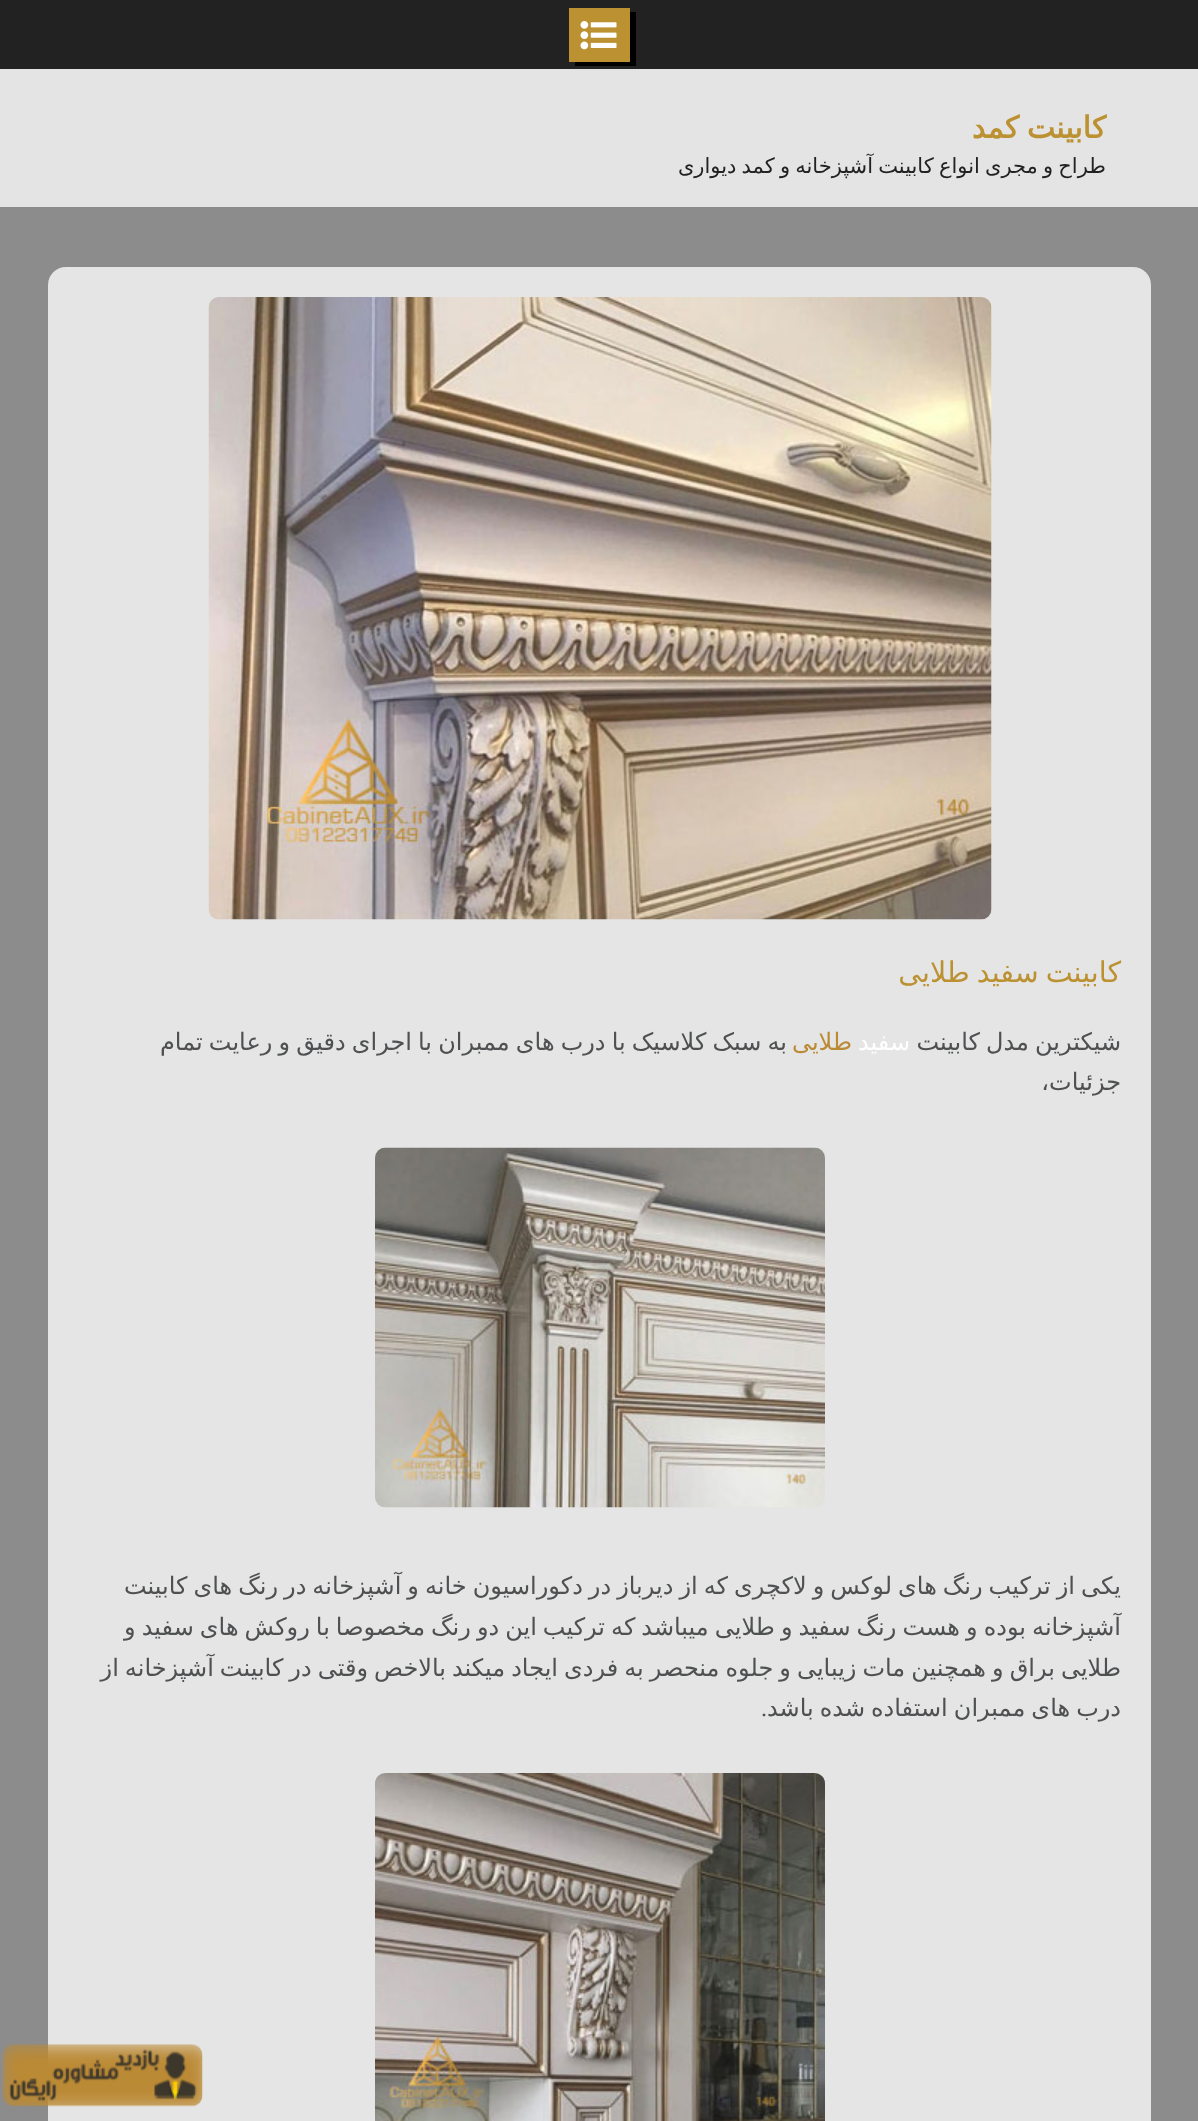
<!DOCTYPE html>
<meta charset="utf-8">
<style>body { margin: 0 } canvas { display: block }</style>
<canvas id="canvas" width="1198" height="2121"></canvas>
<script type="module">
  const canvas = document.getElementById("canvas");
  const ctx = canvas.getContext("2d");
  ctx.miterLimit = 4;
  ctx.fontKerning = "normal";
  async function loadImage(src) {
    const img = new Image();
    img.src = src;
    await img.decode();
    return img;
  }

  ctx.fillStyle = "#8c8c8c";
  ctx.fillRect(0, 0, 1198, 2121);
  ctx.fillStyle = "#222222";
  ctx.fillRect(0, 0, 1198, 69);
  ctx.fillStyle = "#000000";
  ctx.beginPath();
  ctx.moveTo(575, 62);
  ctx.lineTo(575, 66);
  ctx.lineTo(636, 66);
  ctx.lineTo(636, 12);
  ctx.lineTo(630, 12);
  ctx.lineTo(630, 62);
  ctx.closePath();
  ctx.fill();
  ctx.fillStyle = "#bc9131";
  ctx.fillRect(569, 8, 61, 54);
  ctx.drawImage(await loadImage("img1.png"), 580, 21, 37, 29);
  ctx.fillStyle = "#e4e4e4";
  ctx.fillRect(0, 69, 1198, 138);
  ctx.wordSpacing = "-2px";
  ctx.direction = "rtl";
  ctx.font = "bold 30px DejaVu Sans";
  ctx.fillStyle = "#bc9131";
  ctx.fillText("کابینت کمد", 1106, 138);
  ctx.wordSpacing = "-1.5px";
  ctx.font = "21px DejaVu Sans";
  ctx.fillStyle = "#222222";
  ctx.fillText("طراح و مجری انواع کابینت آشپزخانه و کمد دیواری", 1106, 173);
  ctx.fillStyle = "#e5e5e5";
  ctx.beginPath();
  ctx.roundRect(48, 267, 1103, 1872, 18);
  ctx.fill();
  ctx.drawImage(await loadImage("img2.png"), 208, 297, 784, 623);
  ctx.wordSpacing = "-2px";
  ctx.font = "28.5px DejaVu Sans";
  ctx.fillStyle = "#bc9131";
  ctx.fillText("کابینت سفید طلایی", 1121, 982);
  ctx.wordSpacing = "-1.6px";
  ctx.font = "24px DejaVu Sans";
  ctx.fillStyle = "#4e5052";
  ctx.fillText("شیکترین مدل کابینت", 1121, 1050);
  ctx.wordSpacing = "0px";
  ctx.fillStyle = "#ffffff";
  ctx.fillText("سفید", 910, 1050);
  ctx.fillStyle = "#bb8a35";
  ctx.fillText("طلایی", 852, 1050);
  ctx.wordSpacing = "-1.5px";
  ctx.fillStyle = "#4e5052";
  ctx.fillText("به سبک کلاسیک با درب های ممبران با اجرای دقیق و رعایت تمام", 787, 1050);
  ctx.wordSpacing = "0px";
  ctx.fillText("جزئیات،", 1121, 1090);
  ctx.drawImage(await loadImage("img3.png"), 375, 1147, 450, 361);
  ctx.wordSpacing = "-1.6px";
  ctx.fillText("یکی از ترکیب رنگ های لوکس و لاکچری که از دیرباز در دکوراسیون خانه و آشپزخانه در رنگ های کابینت", 1121, 1594);
  ctx.fillText("آشپزخانه بوده و هست رنگ سفید و طلایی میباشد که ترکیب این دو رنگ مخصوصا با روکش های سفید و", 1121, 1635);
  ctx.fillText("طلایی براق و همچنین مات زیبایی و جلوه منحصر به فردی ایجاد میکند بالاخص وقتی در کابینت آشپزخانه از", 1121, 1676);
  ctx.fillText("درب های ممبران استفاده شده باشد", 1121, 1716);
  ctx.wordSpacing = "0px";
  ctx.font = "24px Liberation Serif";
  ctx.fillText(".", 767, 1716);
  ctx.drawImage(await loadImage("img4.png"), 375, 1773, 450, 348);
  ctx.drawImage(await loadImage("img5.png"), 3, 2044, 200, 63);
</script>
